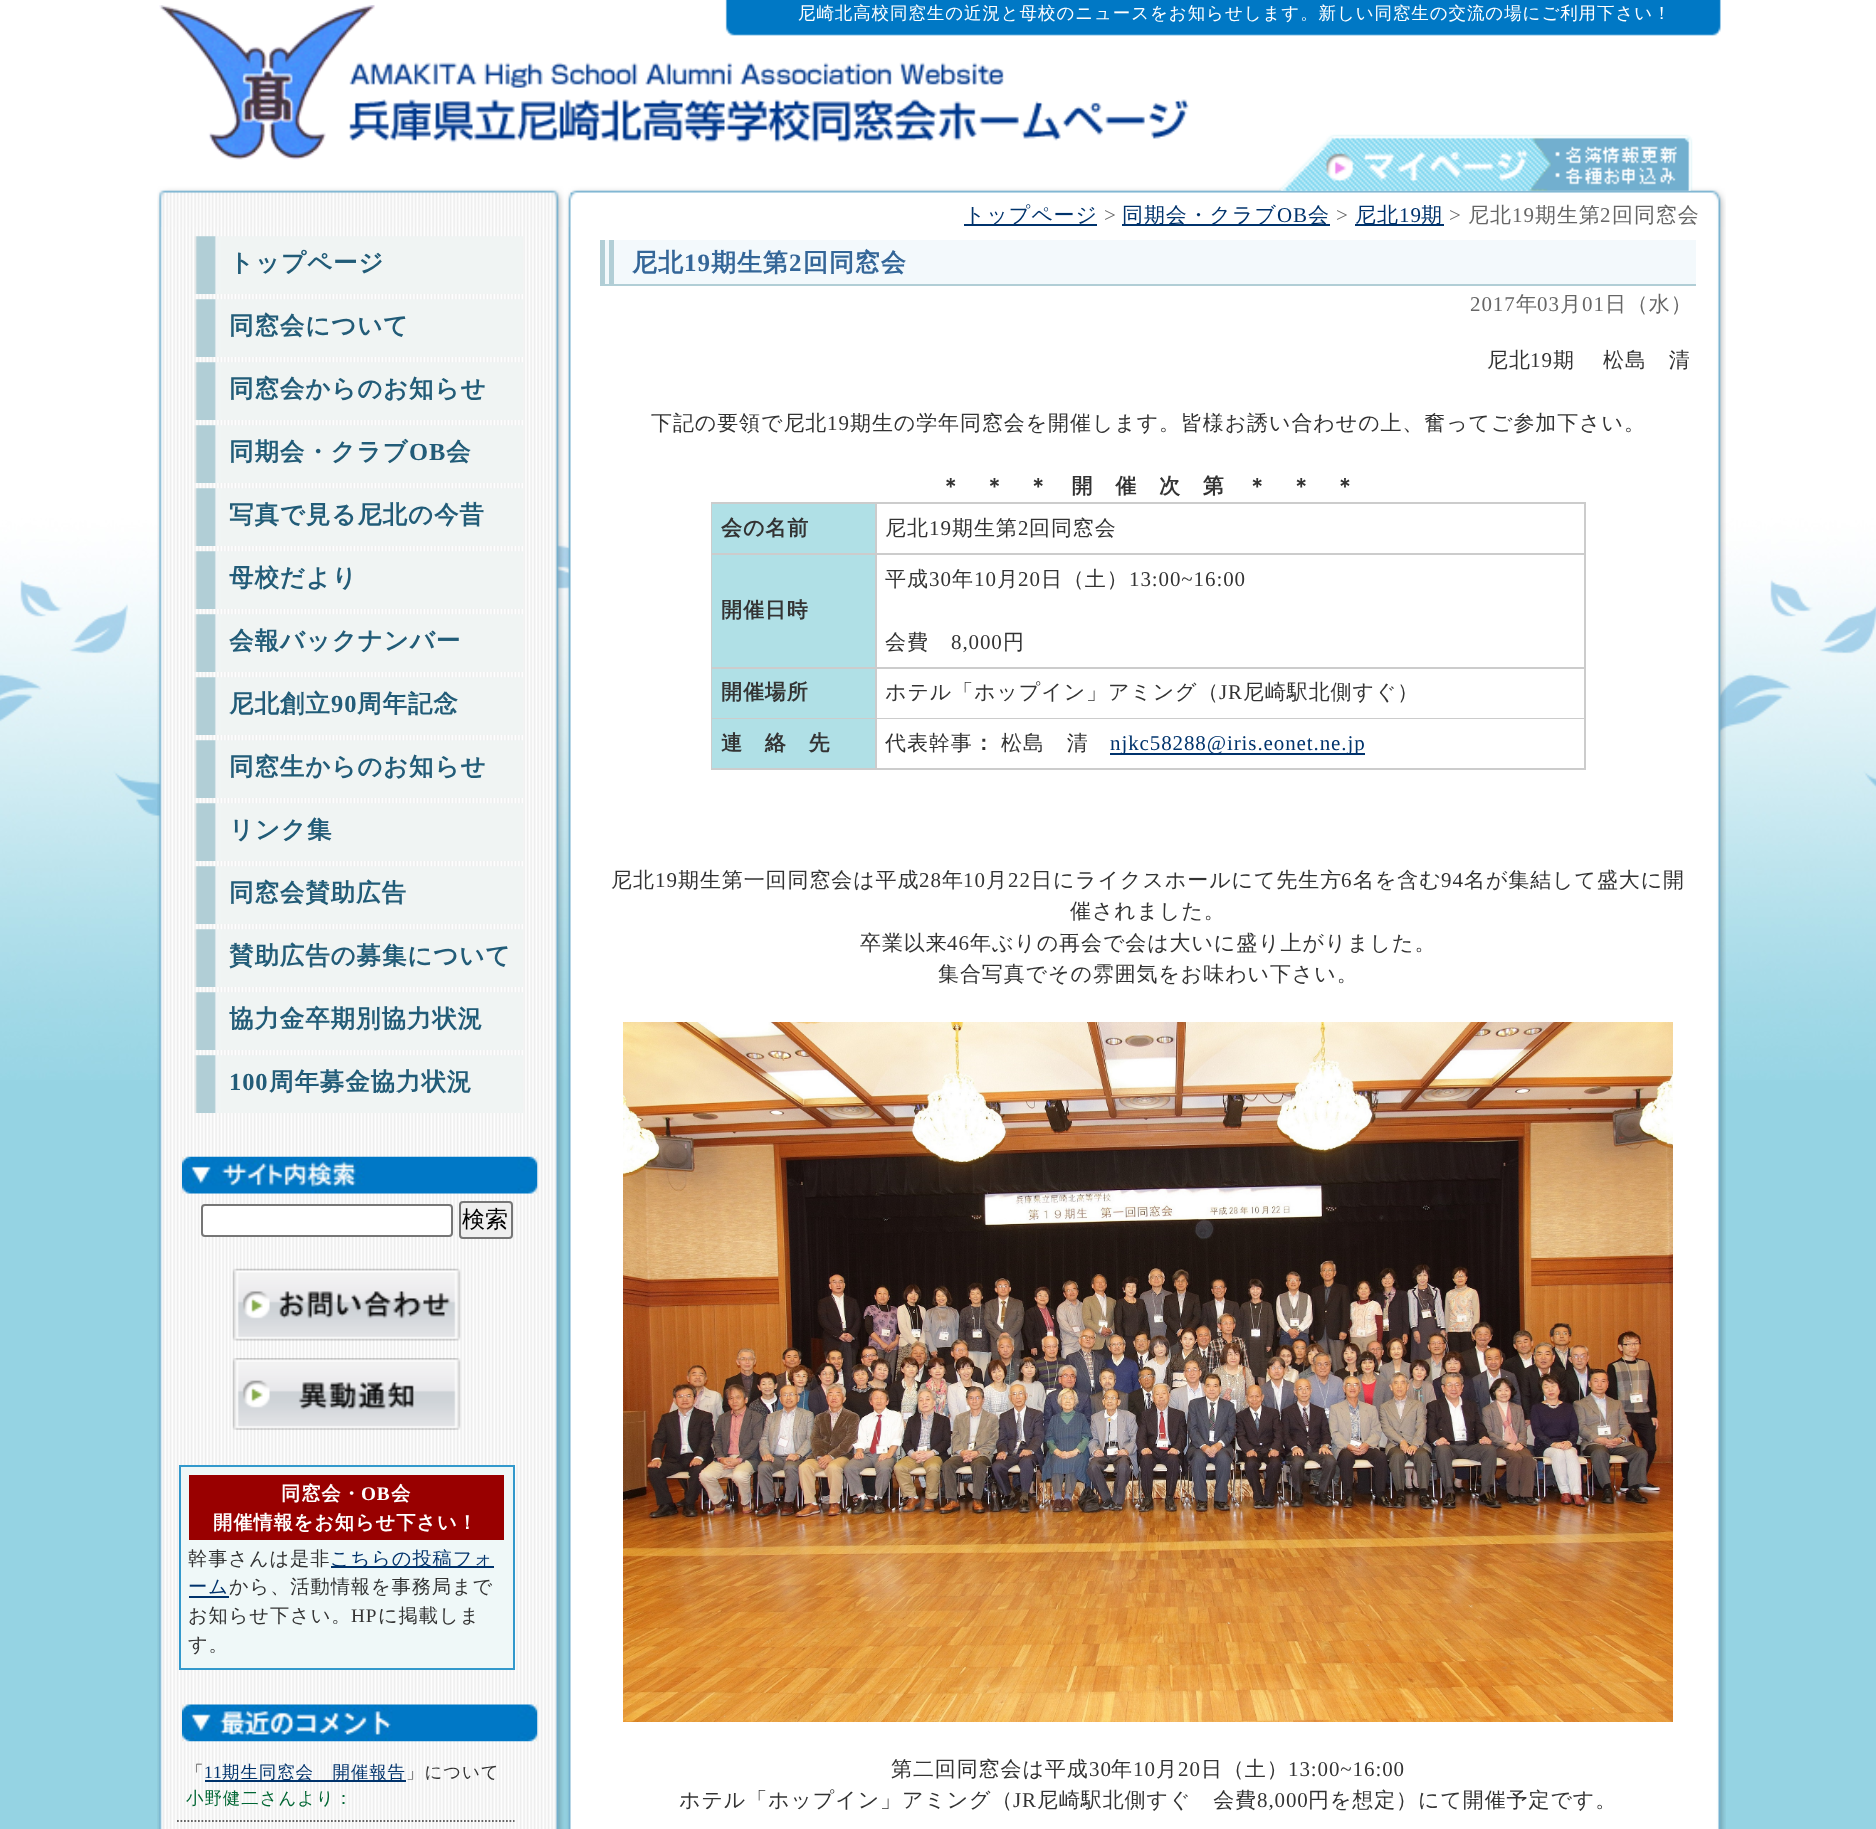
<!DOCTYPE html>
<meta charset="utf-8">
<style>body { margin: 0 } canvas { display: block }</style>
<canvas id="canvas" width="1876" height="1829"></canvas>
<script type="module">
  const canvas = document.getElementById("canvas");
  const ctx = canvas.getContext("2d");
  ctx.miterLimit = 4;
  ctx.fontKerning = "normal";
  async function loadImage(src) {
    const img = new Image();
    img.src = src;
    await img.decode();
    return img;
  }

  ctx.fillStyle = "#95d3e3";
  ctx.fillRect(0, 0, 1876, 1829);
  ctx.drawImage(await loadImage("img1.png"), 0, 0, 1876, 1080);
  ctx.drawImage(await loadImage("img2.png"), 157, 227, 1569, 1602);
  ctx.drawImage(await loadImage("img3.png"), 157, 0, 1569, 227);
  ctx.drawImage(await loadImage("img4.png"), 159, 5, 1030, 155);
  ctx.letterSpacing = "0.9px";
  ctx.font = "500 17.5px WenQuanYi Zen Hei";
  ctx.fillStyle = "#ffffff";
  ctx.fillText("尼崎北高校同窓生の近況と母校のニュースをお知らせします。新しい同窓生の交流の場にご利用下さい！", 798, 19);
  ctx.drawImage(await loadImage("img5.png"), 1279, 134, 414, 57);
  ctx.fillStyle = "#00336c";
  ctx.fillRect(964, 224, 133, 2);
  ctx.font = "500 21px WenQuanYi Zen Hei";
  ctx.fillText("トップページ", 964, 222);
  ctx.font = "21px Liberation Serif";
  ctx.fillStyle = "#666666";
  ctx.fillText(">", 1104, 222);
  ctx.fillStyle = "#00336c";
  ctx.fillRect(1122, 224, 208, 2);
  ctx.font = "500 21px WenQuanYi Zen Hei";
  ctx.fillText("同期会・クラブ", 1122, 222);
  ctx.font = "21px Liberation Serif";
  ctx.fillText("OB", 1277, 222);
  ctx.font = "500 21px WenQuanYi Zen Hei";
  ctx.fillText("会", 1308, 222);
  ctx.font = "21px Liberation Serif";
  ctx.fillStyle = "#666666";
  ctx.fillText(">", 1336, 222);
  ctx.fillStyle = "#00336c";
  ctx.fillRect(1355, 224, 89, 2);
  ctx.font = "500 21px WenQuanYi Zen Hei";
  ctx.fillText("尼北", 1355, 222);
  ctx.font = "21px Liberation Serif";
  ctx.fillText("19", 1399, 222);
  ctx.font = "500 21px WenQuanYi Zen Hei";
  ctx.fillText("期", 1421, 222);
  ctx.font = "21px Liberation Serif";
  ctx.fillStyle = "#666666";
  ctx.fillText(">", 1449, 222);
  ctx.font = "500 21px WenQuanYi Zen Hei";
  ctx.fillText("尼北", 1468, 222);
  ctx.font = "21px Liberation Serif";
  ctx.fillText("19", 1512, 222);
  ctx.font = "500 21px WenQuanYi Zen Hei";
  ctx.fillText("期生第", 1535, 222);
  ctx.font = "21px Liberation Serif";
  ctx.fillText("2", 1600, 222);
  ctx.font = "500 21px WenQuanYi Zen Hei";
  ctx.fillText("回同窓会", 1612, 222);
  ctx.drawImage(await loadImage("img6.png"), 194, 236, 329, 58);
  ctx.font = "bold 24.5px WenQuanYi Zen Hei";
  ctx.fillStyle = "#225c78";
  ctx.fillText("トップページ", 229, 271);
  ctx.drawImage(await loadImage("img6.png"), 194, 299, 329, 58);
  ctx.fillText("同窓会について", 229, 334);
  ctx.drawImage(await loadImage("img6.png"), 194, 362, 329, 58);
  ctx.fillText("同窓会からのお知らせ", 229, 397);
  ctx.drawImage(await loadImage("img6.png"), 194, 425, 329, 58);
  ctx.fillText("同期会・クラブ", 229, 460);
  ctx.font = "bold 24.5px Liberation Serif";
  ctx.fillText("OB", 409, 460);
  ctx.font = "bold 24.5px WenQuanYi Zen Hei";
  ctx.fillText("会", 446, 460);
  ctx.drawImage(await loadImage("img6.png"), 194, 488, 329, 58);
  ctx.fillText("写真で見る尼北の今昔", 229, 523);
  ctx.drawImage(await loadImage("img6.png"), 194, 551, 329, 58);
  ctx.fillText("母校だより", 229, 586);
  ctx.drawImage(await loadImage("img6.png"), 194, 614, 329, 58);
  ctx.fillText("会報バックナンバー", 229, 649);
  ctx.drawImage(await loadImage("img6.png"), 194, 677, 329, 58);
  ctx.fillText("尼北創立", 229, 712);
  ctx.font = "bold 24.5px Liberation Serif";
  ctx.fillText("90", 331, 712);
  ctx.font = "bold 24.5px WenQuanYi Zen Hei";
  ctx.fillText("周年記念", 357, 712);
  ctx.drawImage(await loadImage("img6.png"), 194, 740, 329, 58);
  ctx.fillText("同窓生からのお知らせ", 229, 775);
  ctx.drawImage(await loadImage("img6.png"), 194, 803, 329, 58);
  ctx.fillText("リンク集", 229, 838);
  ctx.drawImage(await loadImage("img6.png"), 194, 866, 329, 58);
  ctx.fillText("同窓会賛助広告", 229, 901);
  ctx.drawImage(await loadImage("img6.png"), 194, 929, 329, 58);
  ctx.fillText("賛助広告の募集について", 229, 964);
  ctx.drawImage(await loadImage("img6.png"), 194, 992, 329, 58);
  ctx.fillText("協力金卒期別協力状況", 229, 1027);
  ctx.drawImage(await loadImage("img6.png"), 194, 1055, 329, 58);
  ctx.font = "bold 24.5px Liberation Serif";
  ctx.fillText("100", 229, 1090);
  ctx.font = "bold 24.5px WenQuanYi Zen Hei";
  ctx.fillText("周年募金協力状況", 269, 1090);
  ctx.drawImage(await loadImage("img7.png"), 182, 1156, 356, 38);
  ctx.fillStyle = "#ffffff";
  ctx.beginPath();
  ctx.roundRect(202, 1205, 250, 31, 3);
  ctx.fill();
  ctx.strokeStyle = "#767676";
  ctx.lineWidth = 2;
  ctx.stroke();
  ctx.fillStyle = "#efefef";
  ctx.beginPath();
  ctx.roundRect(460, 1202, 52, 36, 3);
  ctx.fill();
  ctx.stroke();
  ctx.letterSpacing = "0px";
  ctx.font = "500 23px WenQuanYi Zen Hei";
  ctx.fillStyle = "#000000";
  ctx.fillText("検索", 462, 1227);
  ctx.drawImage(await loadImage("img8.png"), 232, 1268, 229, 73);
  ctx.drawImage(await loadImage("img9.png"), 232, 1358, 229, 72);
  ctx.fillStyle = "#eff8f8";
  ctx.beginPath();
  ctx.rect(180, 1466, 334, 203);
  ctx.fill();
  ctx.strokeStyle = "#3399cc";
  ctx.stroke();
  ctx.fillStyle = "#990000";
  ctx.fillRect(189, 1475, 315, 65);
  ctx.letterSpacing = "0.9px";
  ctx.font = "bold 19.25px WenQuanYi Zen Hei";
  ctx.fillStyle = "#ffffff";
  ctx.fillText("同窓会・", 281, 1500);
  ctx.font = "bold 19.25px Liberation Serif";
  ctx.fillText("OB", 361, 1500);
  ctx.font = "bold 19.25px WenQuanYi Zen Hei";
  ctx.fillText("会", 391, 1500);
  ctx.fillText("開催情報をお知らせ下さい！", 213, 1529);
  ctx.font = "500 19.25px WenQuanYi Zen Hei";
  ctx.fillStyle = "#333333";
  ctx.fillText("幹事さんは是非", 188, 1565);
  ctx.fillStyle = "#00336c";
  ctx.fillRect(331, 1566, 163, 2);
  ctx.fillText("こちらの投稿フォ", 330, 1565);
  ctx.fillText("ーム", 188, 1593);
  ctx.fillRect(189, 1596, 40, 2);
  ctx.fillStyle = "#333333";
  ctx.fillText("から、活動情報を事務局まで", 229, 1593);
  ctx.fillText("お知らせ下さい。", 188, 1622);
  ctx.font = "19.25px Liberation Serif";
  ctx.fillText("HP", 351, 1622);
  ctx.font = "500 19.25px WenQuanYi Zen Hei";
  ctx.fillText("に掲載しま", 378, 1622);
  ctx.fillText("す。", 188, 1651);
  ctx.drawImage(await loadImage("img10.png"), 182, 1704, 356, 38);
  ctx.beginPath();
  ctx.moveTo(177, 1821);
  ctx.lineTo(514.5, 1821);
  ctx.strokeStyle = "#666666";
  ctx.lineWidth = 1.8;
  ctx.setLineDash([1.75, 1.75]);
  ctx.stroke();
  ctx.font = "500 17.5px WenQuanYi Zen Hei";
  ctx.fillText("「", 186, 1778);
  ctx.font = "17.5px Liberation Serif";
  ctx.fillStyle = "#00336c";
  ctx.fillText("11", 204, 1778);
  ctx.fillRect(205, 1780, 201, 2);
  ctx.font = "500 17.5px WenQuanYi Zen Hei";
  ctx.fillText("期生同窓会　開催報告", 222, 1778);
  ctx.fillStyle = "#333333";
  ctx.fillText("」について", 406, 1778);
  ctx.fillStyle = "#006633";
  ctx.fillText("小野健二さんより：", 186, 1804);
  ctx.fillStyle = "#f3f9fc";
  ctx.fillRect(605, 240, 1091, 44);
  ctx.fillStyle = "#b1ced6";
  ctx.fillRect(600, 284, 1096, 2);
  ctx.fillRect(600, 240, 5, 45);
  ctx.fillRect(609, 240, 5, 45);
  ctx.font = "bold 25px WenQuanYi Zen Hei";
  ctx.fillStyle = "#346698";
  ctx.fillText("尼北", 632, 271);
  ctx.font = "bold 25px Liberation Serif";
  ctx.fillText("19", 684, 271);
  ctx.font = "bold 25px WenQuanYi Zen Hei";
  ctx.fillText("期生第", 711, 271);
  ctx.font = "bold 25px Liberation Serif";
  ctx.fillText("2", 789, 271);
  ctx.font = "bold 25px WenQuanYi Zen Hei";
  ctx.fillText("回同窓会", 803, 271);
  ctx.font = "21px Liberation Serif";
  ctx.fillStyle = "#666666";
  ctx.fillText("2017", 1470, 311);
  ctx.font = "500 21px WenQuanYi Zen Hei";
  ctx.fillText("年", 1516, 311);
  ctx.font = "21px Liberation Serif";
  ctx.fillText("03", 1537, 311);
  ctx.font = "500 21px WenQuanYi Zen Hei";
  ctx.fillText("月", 1560, 311);
  ctx.font = "21px Liberation Serif";
  ctx.fillText("01", 1582, 311);
  ctx.font = "500 21px WenQuanYi Zen Hei";
  ctx.fillText("日（水）", 1605, 311);
  ctx.fillStyle = "#333333";
  ctx.fillText("尼北", 1487, 367);
  ctx.font = "21px Liberation Serif";
  ctx.fillText("19", 1530, 367);
  ctx.wordSpacing = "-1px";
  ctx.font = "500 21px WenQuanYi Zen Hei";
  ctx.fillText("期 　松島　清", 1553, 367);
  ctx.wordSpacing = "0px";
  ctx.fillText("下記の要領で尼北", 651, 430);
  ctx.font = "21px Liberation Serif";
  ctx.fillText("19", 827, 430);
  ctx.font = "500 21px WenQuanYi Zen Hei";
  ctx.fillText("期生の学年同窓会を開催します。皆様お誘い合わせの上、奮ってご参加下さい。", 850, 430);
  ctx.font = "bold 21px WenQuanYi Zen Hei";
  ctx.fillText("＊　＊　＊　開　催　次　第　＊　＊　＊", 940, 493);
  ctx.fillStyle = "#cccccc";
  ctx.fillRect(711, 502, 875, 268);
  ctx.fillStyle = "#b0e0e6";
  ctx.fillRect(712, 504, 163, 49);
  ctx.fillStyle = "#333333";
  ctx.fillText("会の名前", 721, 535);
  ctx.fillStyle = "#ffffff";
  ctx.fillRect(877, 504, 707, 49);
  ctx.font = "500 21px WenQuanYi Zen Hei";
  ctx.fillStyle = "#333333";
  ctx.fillText("尼北", 885, 535);
  ctx.font = "21px Liberation Serif";
  ctx.fillText("19", 929, 535);
  ctx.font = "500 21px WenQuanYi Zen Hei";
  ctx.fillText("期生第", 952, 535);
  ctx.font = "21px Liberation Serif";
  ctx.fillText("2", 1018, 535);
  ctx.font = "500 21px WenQuanYi Zen Hei";
  ctx.fillText("回同窓会", 1029, 535);
  ctx.fillStyle = "#b0e0e6";
  ctx.fillRect(712, 555, 163, 112);
  ctx.font = "bold 21px WenQuanYi Zen Hei";
  ctx.fillStyle = "#333333";
  ctx.fillText("開催日時", 721, 617);
  ctx.fillStyle = "#ffffff";
  ctx.fillRect(877, 555, 707, 112);
  ctx.font = "500 21px WenQuanYi Zen Hei";
  ctx.fillStyle = "#333333";
  ctx.fillText("平成", 885, 586);
  ctx.font = "21px Liberation Serif";
  ctx.fillText("30", 929, 586);
  ctx.font = "500 21px WenQuanYi Zen Hei";
  ctx.fillText("年", 952, 586);
  ctx.font = "21px Liberation Serif";
  ctx.fillText("10", 974, 586);
  ctx.font = "500 21px WenQuanYi Zen Hei";
  ctx.fillText("月", 997, 586);
  ctx.font = "21px Liberation Serif";
  ctx.fillText("20", 1018, 586);
  ctx.font = "500 21px WenQuanYi Zen Hei";
  ctx.fillText("日（土）", 1041, 586);
  ctx.font = "21px Liberation Serif";
  ctx.fillText("13:00~16:00", 1129, 586);
  ctx.font = "500 21px WenQuanYi Zen Hei";
  ctx.fillText("会費", 885, 649);
  ctx.font = "21px Liberation Serif";
  ctx.fillText("8,000", 951, 649);
  ctx.font = "500 21px WenQuanYi Zen Hei";
  ctx.fillText("円", 1003, 649);
  ctx.fillStyle = "#b0e0e6";
  ctx.fillRect(712, 669, 163, 49);
  ctx.font = "bold 21px WenQuanYi Zen Hei";
  ctx.fillStyle = "#333333";
  ctx.fillText("開催場所", 721, 699);
  ctx.fillStyle = "#ffffff";
  ctx.fillRect(877, 669, 707, 49);
  ctx.font = "500 21px WenQuanYi Zen Hei";
  ctx.fillStyle = "#333333";
  ctx.fillText("ホテル「ホップイン」アミング（", 885, 699);
  ctx.font = "21px Liberation Serif";
  ctx.fillText("JR", 1219, 699);
  ctx.font = "500 21px WenQuanYi Zen Hei";
  ctx.fillText("尼崎駅北側すぐ）", 1243, 699);
  ctx.fillStyle = "#b0e0e6";
  ctx.fillRect(712, 719, 163, 49);
  ctx.font = "bold 21px WenQuanYi Zen Hei";
  ctx.fillStyle = "#333333";
  ctx.fillText("連　絡　先", 721, 750);
  ctx.fillStyle = "#ffffff";
  ctx.fillRect(877, 719, 707, 49);
  ctx.font = "500 21px WenQuanYi Zen Hei";
  ctx.fillStyle = "#333333";
  ctx.fillText("代表幹事", 885, 750);
  ctx.font = "bold 21px WenQuanYi Zen Hei";
  ctx.fillText("：", 973, 750);
  ctx.font = "500 21px WenQuanYi Zen Hei";
  ctx.fillText("松島　清", 1001, 750);
  ctx.fillStyle = "#00336c";
  ctx.fillRect(1110, 753, 255, 2);
  ctx.font = "21px Liberation Serif";
  ctx.fillText("njkc58288@iris.eonet.ne.jp", 1110, 750);
  ctx.font = "500 21px WenQuanYi Zen Hei";
  ctx.fillStyle = "#333333";
  ctx.fillText("尼北", 611, 887);
  ctx.font = "21px Liberation Serif";
  ctx.fillText("19", 655, 887);
  ctx.font = "500 21px WenQuanYi Zen Hei";
  ctx.fillText("期生第一回同窓会は平成", 678, 887);
  ctx.font = "21px Liberation Serif";
  ctx.fillText("28", 919, 887);
  ctx.font = "500 21px WenQuanYi Zen Hei";
  ctx.fillText("年", 942, 887);
  ctx.font = "21px Liberation Serif";
  ctx.fillText("10", 963, 887);
  ctx.font = "500 21px WenQuanYi Zen Hei";
  ctx.fillText("月", 986, 887);
  ctx.font = "21px Liberation Serif";
  ctx.fillText("22", 1008, 887);
  ctx.font = "500 21px WenQuanYi Zen Hei";
  ctx.fillText("日にライクスホールにて先生方", 1031, 887);
  ctx.font = "21px Liberation Serif";
  ctx.fillText("6", 1341, 887);
  ctx.font = "500 21px WenQuanYi Zen Hei";
  ctx.fillText("名を含む", 1353, 887);
  ctx.font = "21px Liberation Serif";
  ctx.fillText("94", 1441, 887);
  ctx.font = "500 21px WenQuanYi Zen Hei";
  ctx.fillText("名が集結して盛大に開", 1464, 887);
  ctx.fillText("催されました。", 1070, 918);
  ctx.fillText("卒業以来", 860, 950);
  ctx.font = "21px Liberation Serif";
  ctx.fillText("46", 947, 950);
  ctx.font = "500 21px WenQuanYi Zen Hei";
  ctx.fillText("年ぶりの再会で会は大いに盛り上がりました。", 970, 950);
  ctx.fillText("集合写真でその雰囲気をお味わい下さい。", 938, 981);
  ctx.drawImage(await loadImage("img11.png"), 623, 1022, 1050, 700);
  ctx.fillText("第二回同窓会は平成", 891, 1776);
  ctx.font = "21px Liberation Serif";
  ctx.fillText("30", 1089, 1776);
  ctx.font = "500 21px WenQuanYi Zen Hei";
  ctx.fillText("年", 1111, 1776);
  ctx.font = "21px Liberation Serif";
  ctx.fillText("10", 1133, 1776);
  ctx.font = "500 21px WenQuanYi Zen Hei";
  ctx.fillText("月", 1156, 1776);
  ctx.font = "21px Liberation Serif";
  ctx.fillText("20", 1178, 1776);
  ctx.font = "500 21px WenQuanYi Zen Hei";
  ctx.fillText("日（土）", 1201, 1776);
  ctx.font = "21px Liberation Serif";
  ctx.fillText("13:00~16:00", 1288, 1776);
  ctx.font = "500 21px WenQuanYi Zen Hei";
  ctx.fillText("ホテル「ホップイン」アミング（", 679, 1807);
  ctx.font = "21px Liberation Serif";
  ctx.fillText("JR", 1013, 1807);
  ctx.font = "500 21px WenQuanYi Zen Hei";
  ctx.fillText("尼崎駅北側すぐ　会費", 1037, 1807);
  ctx.font = "21px Liberation Serif";
  ctx.fillText("8,000", 1257, 1807);
  ctx.font = "500 21px WenQuanYi Zen Hei";
  ctx.fillText("円を想定）にて開催予定です。", 1308, 1807);
</script>
